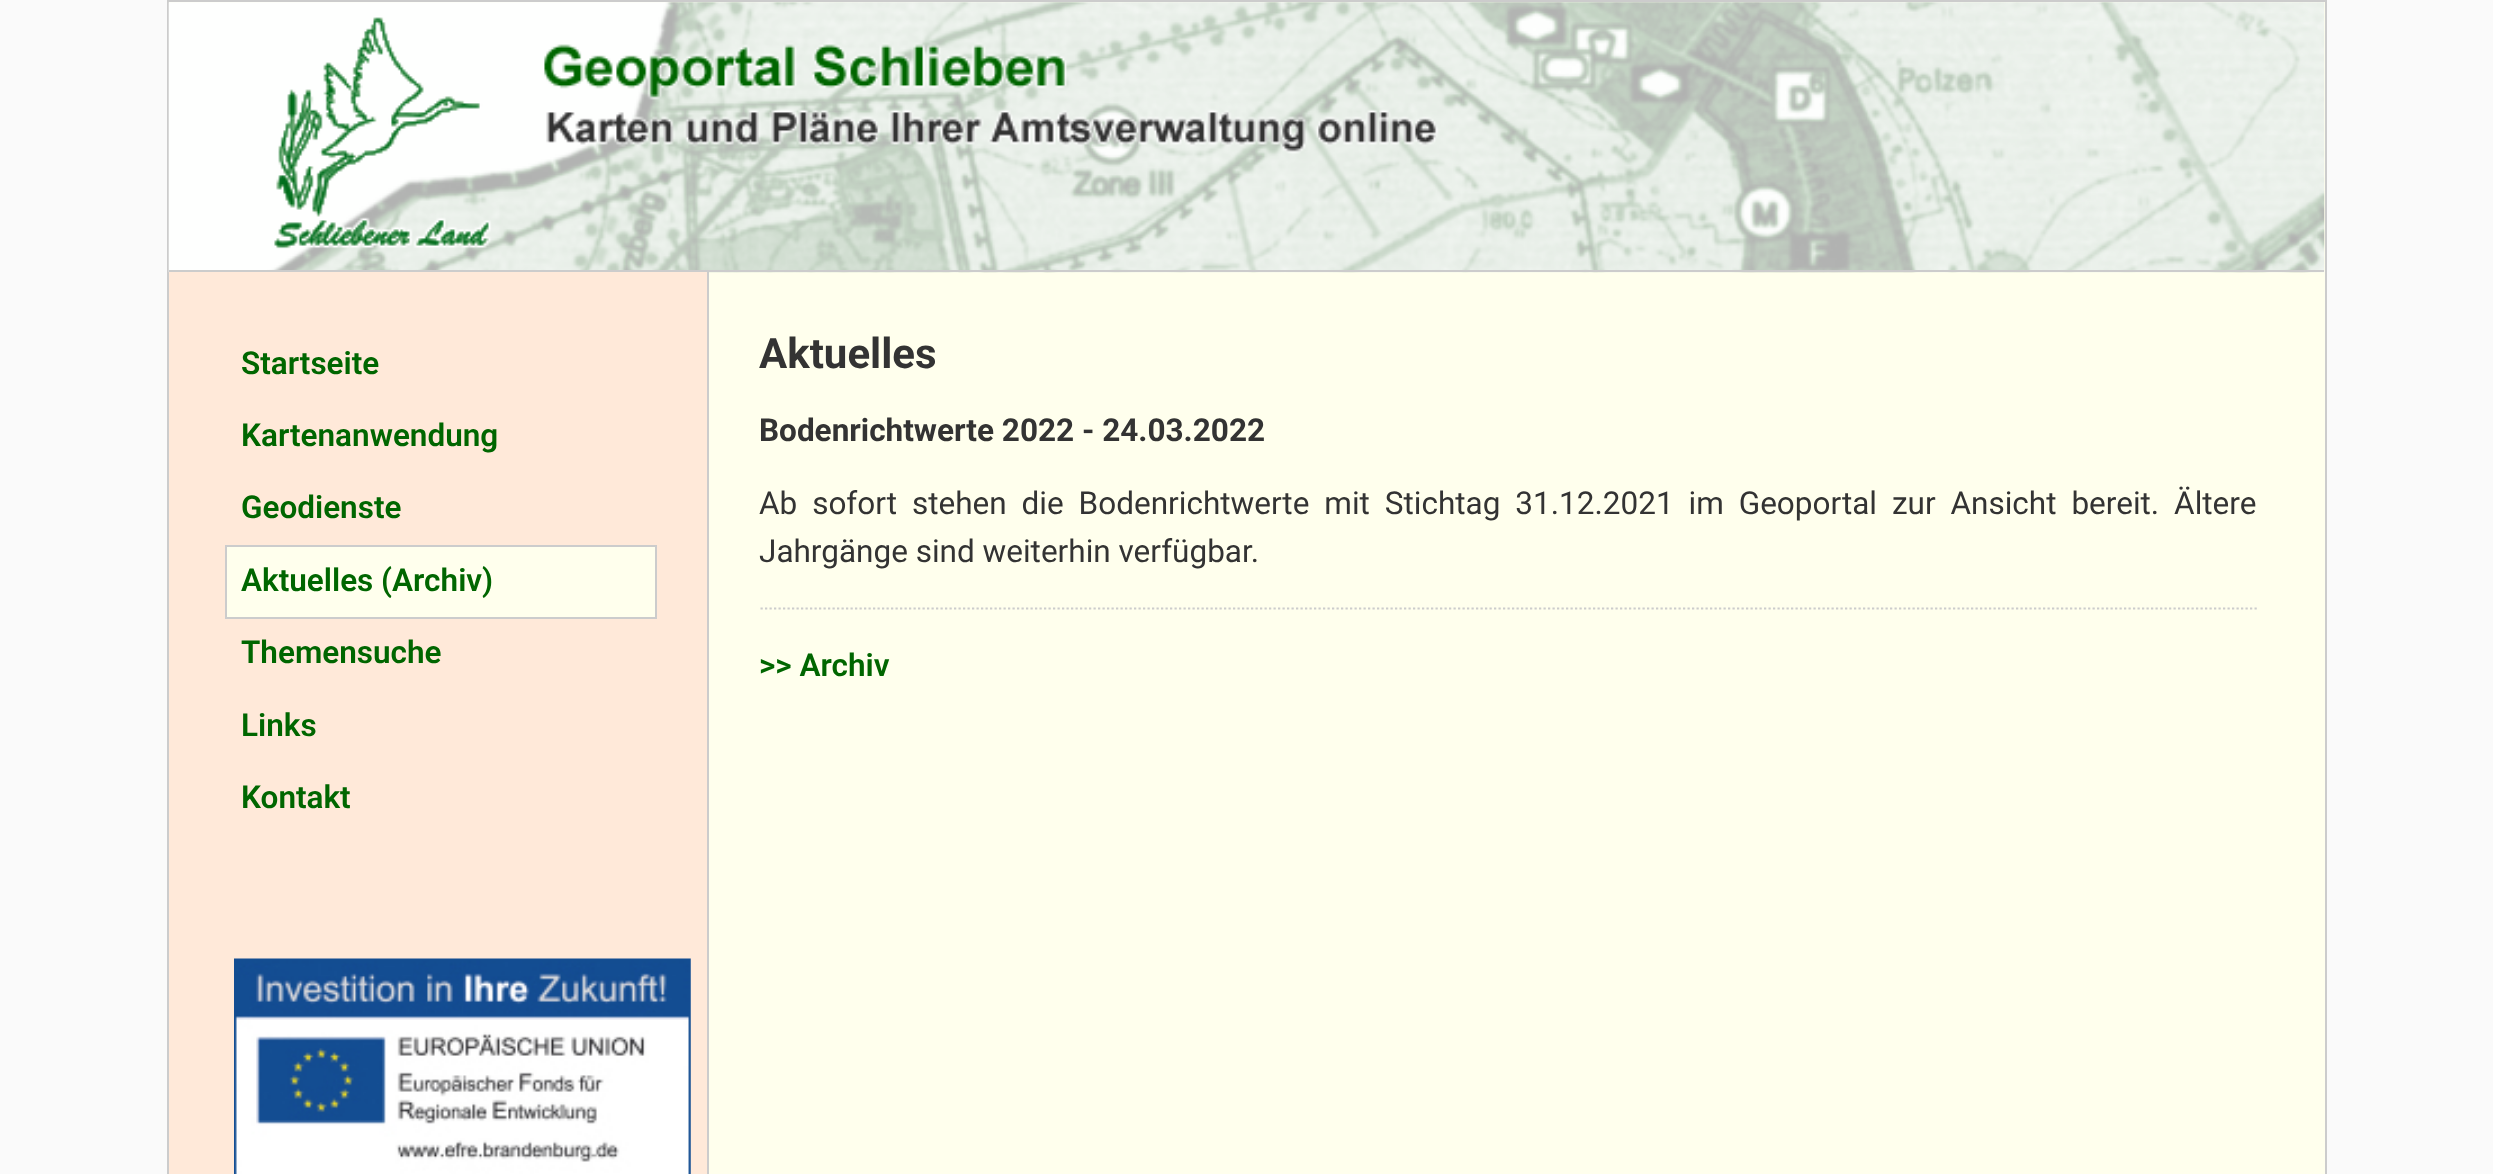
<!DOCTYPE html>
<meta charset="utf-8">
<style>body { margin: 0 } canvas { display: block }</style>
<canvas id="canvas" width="2493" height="1174"></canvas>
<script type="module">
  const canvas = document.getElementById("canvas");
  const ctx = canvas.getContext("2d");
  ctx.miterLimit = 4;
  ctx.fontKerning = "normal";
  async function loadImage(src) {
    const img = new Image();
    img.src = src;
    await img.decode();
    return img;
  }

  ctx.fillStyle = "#fafafa";
  ctx.fillRect(0, 0, 2493, 1174);
  ctx.fillStyle = "#ffffed";
  ctx.beginPath();
  ctx.rect(168, 1, 2158, 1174);
  ctx.fill();
  ctx.strokeStyle = "#cccccc";
  ctx.lineWidth = 2;
  ctx.stroke();
  ctx.drawImage(await loadImage("img1.png"), 168, 2, 2157, 271);
  ctx.fillStyle = "#cccccc";
  ctx.fillRect(169, 270, 2155, 2);
  ctx.fillStyle = "#ffe9d9";
  ctx.fillRect(169, 272, 538, 902);
  ctx.fillStyle = "#cccccc";
  ctx.fillRect(707, 272, 2, 902);
  ctx.font = "600 31.5px Roboto";
  ctx.fillStyle = "#006600";
  ctx.fillText("Startseite", 241, 374);
  ctx.fillText("Kartenanwendung", 241, 446);
  ctx.fillText("Geodienste", 241, 518);
  ctx.fillStyle = "#ffffed";
  ctx.beginPath();
  ctx.rect(226, 546, 430, 72);
  ctx.fill();
  ctx.stroke();
  ctx.fillStyle = "#006600";
  ctx.fillText("Aktuelles (Archiv)", 241, 591);
  ctx.fillText("Themensuche", 241, 663);
  ctx.fillText("Links", 241, 736);
  ctx.fillText("Kontakt", 241, 808);
  ctx.drawImage(await loadImage("img2.png"), 234, 958, 457, 216);
  ctx.font = "bold 42px Roboto";
  ctx.fillStyle = "#333333";
  ctx.fillText("Aktuelles", 759, 368);
  ctx.font = "bold 31.5px Roboto";
  ctx.fillText("Bodenrichtwerte 2022 - 24.03.2022", 759, 441);
  ctx.wordSpacing = "7.1px";
  ctx.font = "31.5px Roboto";
  ctx.fillText("Ab sofort stehen die Bodenrichtwerte mit Stichtag 31.12.2021 im Geoportal zur Ansicht bereit. Ältere", 759, 514);
  ctx.wordSpacing = "0px";
  ctx.fillText("Jahrgänge sind weiterhin verfügbar.", 759, 562);
  ctx.beginPath();
  ctx.moveTo(760.5, 608.5);
  ctx.lineTo(2257, 608.5);
  ctx.lineWidth = 2.2;
  ctx.setLineDash([2.25, 2.25]);
  ctx.stroke();
  ctx.font = "600 31.5px Roboto";
  ctx.fillStyle = "#006600";
  ctx.fillText(">> Archiv", 759, 676);
</script>
